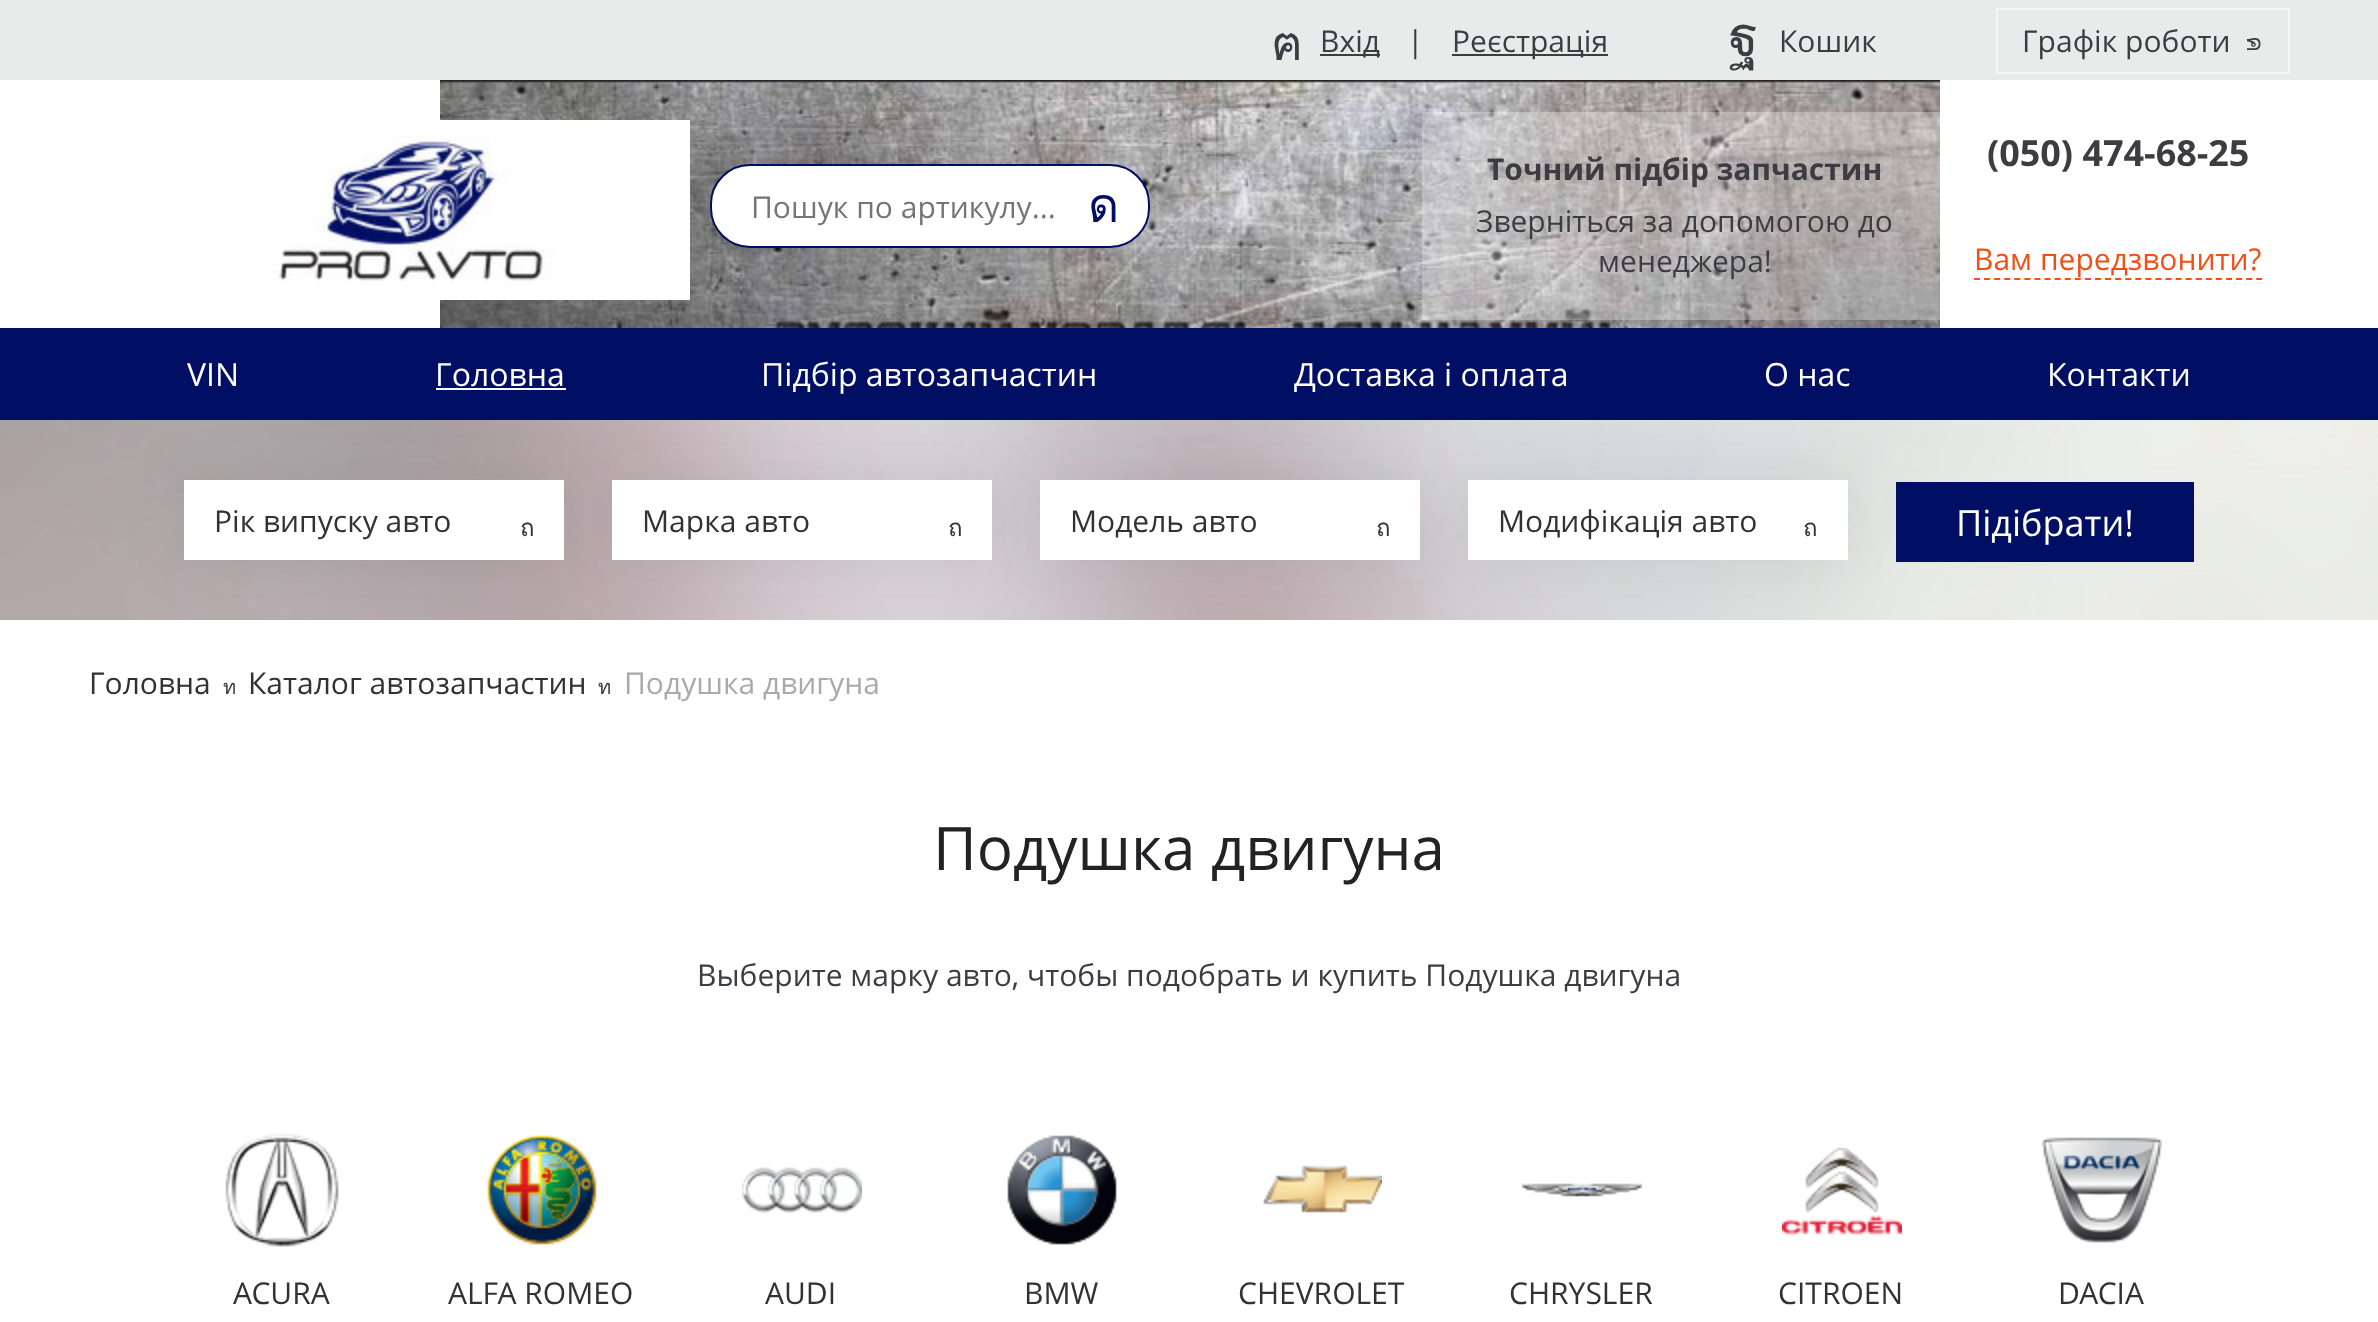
<!DOCTYPE html>
<meta charset="utf-8">
<style>body { margin: 0 } canvas { display: block }</style>
<canvas id="canvas" width="2378" height="1322"></canvas>
<script type="module">
  const canvas = document.getElementById("canvas");
  const ctx = canvas.getContext("2d");
  ctx.miterLimit = 4;
  ctx.fontKerning = "normal";
  async function loadImage(src) {
    const img = new Image();
    img.src = src;
    await img.decode();
    return img;
  }

  ctx.fillStyle = "#ffffff";
  ctx.fillRect(0, 0, 2378, 1322);
  ctx.drawImage(await loadImage("img1.png"), 440, 80, 1500, 248);
  ctx.fillStyle = "#e8ebe9";
  ctx.fillRect(0, 0, 2378, 80);
  ctx.font = "48px Loma";
  ctx.fillStyle = "#3c3c42";
  ctx.fillText("ฅ", 1271, 60);
  ctx.fillRect(1320, 54, 60, 2);
  ctx.font = "30px Open Sans";
  ctx.fillText("Вхід", 1320, 52);
  ctx.fillText("|", 1407, 52);
  ctx.fillRect(1452, 54, 156, 2);
  ctx.fillText("Реєстрація", 1452, 52);
  ctx.font = "56px Loma";
  ctx.fillText("ฐ", 1728, 56);
  ctx.font = "30px Open Sans";
  ctx.fillText("Кошик", 1779, 52);
  ctx.strokeStyle = "#f4f5f4";
  ctx.lineWidth = 2;
  ctx.strokeRect(1997, 9, 292, 64);
  ctx.fillText("Графік роботи", 2022, 52);
  ctx.font = "24px Loma";
  ctx.save();
  ctx.translate(2247, 36);
  ctx.rotate(90 * Math.PI / 180);
  ctx.fillText("ค", 0, 0);
  ctx.restore();
  ctx.drawImage(await loadImage("img2.png"), 268, 120, 422, 180);
  ctx.fillStyle = "#ffffff";
  ctx.beginPath();
  ctx.roundRect(711, 165, 438, 82, 39);
  ctx.fill();
  ctx.strokeStyle = "#000f64";
  ctx.stroke();
  ctx.font = "30px Open Sans";
  ctx.fillStyle = "#757575";
  ctx.fillText("Пошук по артикулу...", 751, 218);
  ctx.font = "48px Loma";
  ctx.fillStyle = "#000f64";
  ctx.fillText("ด", 1088, 222);
  ctx.fillStyle = "rgba(255, 255, 255, 0.3)";
  ctx.fillRect(1422, 112, 518, 208);
  ctx.font = "bold 30px Open Sans";
  ctx.fillStyle = "#3c3c42";
  ctx.fillText("Точний підбір запчастин", 1487, 180);
  ctx.font = "30px Open Sans";
  ctx.fillText("Зверніться за допомогою до", 1476, 232);
  ctx.fillText("менеджера!", 1598, 272);
  ctx.font = "bold 36px Open Sans";
  ctx.fillText("(050) 474-68-25", 1987, 166);
  ctx.font = "30px Open Sans";
  ctx.fillStyle = "#f05016";
  ctx.fillText("Вам передзвонити?", 1974, 270);
  ctx.beginPath();
  ctx.moveTo(1974, 279);
  ctx.lineTo(2262, 279);
  ctx.strokeStyle = "#f05016";
  ctx.setLineDash([6, 4.08]);
  ctx.stroke();
  ctx.fillStyle = "#000f64";
  ctx.fillRect(0, 328, 2378, 92);
  ctx.font = "32px Open Sans";
  ctx.fillStyle = "#ffffff";
  ctx.fillText("VIN", 187, 386);
  ctx.fillText("Головна", 435, 386);
  ctx.fillRect(436, 388, 130, 2);
  ctx.fillText("Підбір автозапчастин", 761, 386);
  ctx.fillText("Доставка і оплата", 1294, 386);
  ctx.fillText("О нас", 1764, 386);
  ctx.fillText("Контакти", 2047, 386);
  ctx.drawImage(await loadImage("img3.png"), 0, 420, 2378, 200);
  ctx.fillStyle = "rgba(26, 38, 51, 0.1)";
  ctx.filter = "blur(30px)";
  ctx.beginPath();
  ctx.rect(184, 480, 380, 80);
  ctx.fill();
  ctx.filter = "none";
  ctx.fillStyle = "#ffffff";
  ctx.fillRect(184, 480, 380, 80);
  ctx.font = "30px Open Sans";
  ctx.fillStyle = "#313136";
  ctx.fillText("Рік випуску авто", 214, 532);
  ctx.fillStyle = "rgba(26, 38, 51, 0.1)";
  ctx.filter = "blur(30px)";
  ctx.beginPath();
  ctx.rect(612, 480, 380, 80);
  ctx.fill();
  ctx.filter = "none";
  ctx.font = "24px Loma";
  ctx.fillStyle = "#313136";
  ctx.fillText("ถ", 520, 536);
  ctx.fillStyle = "#ffffff";
  ctx.fillRect(612, 480, 380, 80);
  ctx.font = "30px Open Sans";
  ctx.fillStyle = "#313136";
  ctx.fillText("Марка авто", 642, 532);
  ctx.fillStyle = "rgba(26, 38, 51, 0.1)";
  ctx.filter = "blur(30px)";
  ctx.beginPath();
  ctx.rect(1040, 480, 380, 80);
  ctx.fill();
  ctx.filter = "none";
  ctx.font = "24px Loma";
  ctx.fillStyle = "#313136";
  ctx.fillText("ถ", 948, 536);
  ctx.fillStyle = "#ffffff";
  ctx.fillRect(1040, 480, 380, 80);
  ctx.font = "30px Open Sans";
  ctx.fillStyle = "#313136";
  ctx.fillText("Модель авто", 1070, 532);
  ctx.fillStyle = "rgba(26, 38, 51, 0.1)";
  ctx.filter = "blur(30px)";
  ctx.beginPath();
  ctx.rect(1468, 480, 380, 80);
  ctx.fill();
  ctx.filter = "none";
  ctx.font = "24px Loma";
  ctx.fillStyle = "#313136";
  ctx.fillText("ถ", 1376, 536);
  ctx.fillStyle = "#ffffff";
  ctx.fillRect(1468, 480, 380, 80);
  ctx.font = "30px Open Sans";
  ctx.fillStyle = "#313136";
  ctx.fillText("Модифікація авто", 1498, 532);
  ctx.font = "24px Loma";
  ctx.fillText("ถ", 1803, 536);
  ctx.fillStyle = "#000f64";
  ctx.fillRect(1896, 482, 298, 80);
  ctx.font = "36px Open Sans";
  ctx.fillStyle = "#ffffff";
  ctx.fillText("Підібрати!", 1956, 536);
  ctx.font = "30px Open Sans";
  ctx.fillStyle = "#313136";
  ctx.fillText("Головна", 89, 694);
  ctx.font = "20px Loma";
  ctx.fillStyle = "#3c3c42";
  ctx.fillText("ท", 223, 694);
  ctx.font = "30px Open Sans";
  ctx.fillStyle = "#313136";
  ctx.fillText("Каталог автозапчастин", 248, 694);
  ctx.font = "20px Loma";
  ctx.fillStyle = "#3c3c42";
  ctx.fillText("ท", 598, 694);
  ctx.font = "30px Open Sans";
  ctx.fillStyle = "#aaaaaa";
  ctx.fillText("Подушка двигуна", 624, 694);
  ctx.font = "60px Open Sans";
  ctx.fillStyle = "#232326";
  ctx.fillText("Подушка двигуна", 933, 870);
  ctx.font = "30px Open Sans";
  ctx.fillStyle = "#3c3c42";
  ctx.fillText("Выберите марку авто, чтобы подобрать и купить Подушка двигуна", 697, 986);
  ctx.drawImage(await loadImage("img4.png"), 225, 1133, 114, 114);
  ctx.fillStyle = "#313136";
  ctx.fillText("ACURA", 233, 1304);
  ctx.drawImage(await loadImage("img5.png"), 487, 1135, 110, 110);
  ctx.fillText("ALFA ROMEO", 448, 1304);
  ctx.drawImage(await loadImage("img6.png"), 742, 1167, 120, 46);
  ctx.fillText("AUDI", 765, 1304);
  ctx.drawImage(await loadImage("img7.png"), 1007, 1135, 110, 110);
  ctx.fillText("BMW", 1024, 1304);
  ctx.drawImage(await loadImage("img8.png"), 1263, 1165, 119, 48);
  ctx.fillText("CHEVROLET", 1238, 1304);
  ctx.drawImage(await loadImage("img9.png"), 1522, 1183, 120, 14);
  ctx.fillText("CHRYSLER", 1509, 1304);
  ctx.drawImage(await loadImage("img10.png"), 1782, 1147, 120, 88);
  ctx.fillText("CITROEN", 1778, 1304);
  ctx.drawImage(await loadImage("img11.png"), 2042, 1137, 120, 106);
  ctx.fillText("DACIA", 2058, 1304);
</script>
